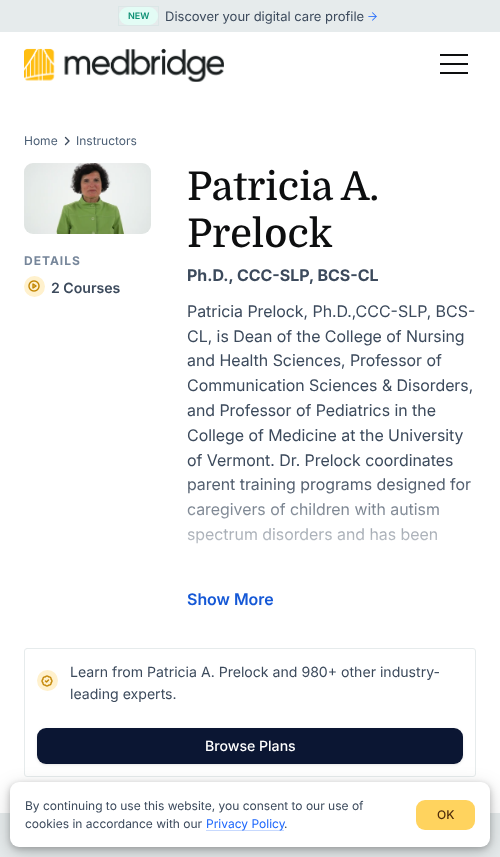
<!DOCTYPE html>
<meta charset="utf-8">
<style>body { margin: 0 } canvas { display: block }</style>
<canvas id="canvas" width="500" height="857"></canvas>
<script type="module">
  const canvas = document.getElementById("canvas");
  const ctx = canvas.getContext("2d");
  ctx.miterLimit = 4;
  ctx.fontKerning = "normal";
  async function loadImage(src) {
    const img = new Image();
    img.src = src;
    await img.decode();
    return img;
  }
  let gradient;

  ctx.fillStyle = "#ffffff";
  ctx.fillRect(0, 0, 500, 857);
  ctx.fillStyle = "#e6ebec";
  ctx.fillRect(0, 0, 500, 32);
  ctx.fillStyle = "#e3fcf5";
  ctx.beginPath();
  ctx.roundRect(119, 7, 39, 18, 9);
  ctx.fill();
  ctx.strokeStyle = "rgba(15, 145, 117, 0.05)";
  ctx.strokeRect(118.5, 6.5, 40, 19);
  ctx.font = "600 9px Inter";
  ctx.fillStyle = "#0f9175";
  ctx.fillText("NEW", 128, 19);
  ctx.font = "13px Inter";
  ctx.fillStyle = "#3c4a5c";
  ctx.fillText("Discover your digital care profile", 165, 21);
  ctx.drawImage(await loadImage("img1.png"), 368, 12, 9, 9);
  ctx.font = "12px Inter";
  ctx.fillStyle = "#4c5f75";
  ctx.fillText("Home", 24, 145);
  ctx.beginPath();
  ctx.moveTo(65.5, 144.5);
  ctx.lineTo(69, 141);
  ctx.lineTo(65.5, 137.5);
  ctx.strokeStyle = "#3c4a5c";
  ctx.lineWidth = 1.4;
  ctx.lineCap = "round";
  ctx.lineJoin = "round";
  ctx.stroke();
  ctx.fillText("Instructors", 76, 145);
  ctx.drawImage(await loadImage("img2.png"), 24, 163, 127, 71);
  ctx.letterSpacing = "1px";
  ctx.font = "bold 12px Inter";
  ctx.fillStyle = "#76869a";
  ctx.fillText("DETAILS", 24, 265);
  ctx.fillStyle = "#fff1cd";
  ctx.beginPath();
  ctx.arc(34.5, 286.5, 10.5, 0, Math.PI * 2);
  ctx.fill();
  ctx.drawImage(await loadImage("img3.png"), 28, 280, 12, 12);
  ctx.letterSpacing = "0px";
  ctx.font = "600 14.1px Inter";
  ctx.fillStyle = "#3c4a5c";
  ctx.fillText("2 Courses", 51, 293);
  ctx.font = "500 39.5px Domine";
  ctx.fillStyle = "#0d0e0f";
  ctx.fillText("Patricia A.", 187, 200);
  ctx.fillText("Prelock", 187, 247);
  ctx.font = "bold 16px 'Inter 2'";
  ctx.fillStyle = "#3c4a5c";
  ctx.fillText("Ph.D., CCC-SLP, BCS-CL", 187, 281);
  ctx.font = "16px 'Inter 2'";
  ctx.fillText("Patricia Prelock, Ph.D.,CCC-SLP, BCS-", 187, 317);
  ctx.fillText("CL, is Dean of the College of Nursing", 187, 342);
  ctx.fillText("and Health Sciences, Professor of", 187, 366);
  ctx.fillText("Communication Sciences & Disorders,", 187, 391);
  ctx.fillText("and Professor of Pediatrics in the", 187, 416);
  ctx.fillText("College of Medicine at the University", 187, 441);
  ctx.fillText("of Vermont. Dr. Prelock coordinates", 187, 466);
  ctx.fillText("parent training programs designed for", 187, 490);
  ctx.fillText("caregivers of children with autism", 187, 515);
  ctx.fillText("spectrum disorders and has been", 187, 540);
  gradient = ctx.createLinearGradient(332, 587, 332, 472);
  gradient.addColorStop(0, "#ffffff");
  gradient.addColorStop(0.05, "#ffffff");
  gradient.addColorStop(1, "rgba(255, 255, 255, 0)");
  ctx.fillStyle = gradient;
  ctx.fillRect(187, 478, 283, 66);
  ctx.font = "600 16px 'Inter 2'";
  ctx.fillStyle = "#1558d6";
  ctx.fillText("Show More", 187, 605);
  ctx.beginPath();
  ctx.roundRect(24.5, 648.5, 451, 128, 2.5);
  ctx.strokeStyle = "#e6ebec";
  ctx.lineWidth = 1;
  ctx.lineJoin = "miter";
  ctx.stroke();
  ctx.fillStyle = "#fff1cd";
  ctx.beginPath();
  ctx.arc(47.5, 680.5, 10.5, 0, Math.PI * 2);
  ctx.fill();
  ctx.drawImage(await loadImage("img4.png"), 41, 675, 12, 12);
  ctx.font = "14.1px Inter";
  ctx.fillStyle = "#3c4a5c";
  ctx.fillText("Learn from Patricia A. Prelock and 980+ other industry-", 70, 677);
  ctx.fillText("leading experts.", 70, 699);
  ctx.fillStyle = "rgba(0, 0, 0, 0.07)";
  ctx.filter = "blur(1px)";
  ctx.beginPath();
  ctx.roundRect(38, 730, 424, 34, 8);
  ctx.fill();
  ctx.filter = "none";
  ctx.filter = "blur(1.5px)";
  ctx.beginPath();
  ctx.roundRect(37, 729, 426, 36, 9);
  ctx.fill();
  ctx.filter = "none";
  ctx.fillStyle = "#0b1633";
  ctx.beginPath();
  ctx.roundRect(37, 728, 426, 36, 9);
  ctx.fill();
  ctx.font = "500 14.1px Inter";
  ctx.fillStyle = "#ffffff";
  ctx.fillText("Browse Plans", 205, 751);
  ctx.fillStyle = "#e6ebec";
  ctx.fillRect(0, 813, 500, 44);
  ctx.drawImage(await loadImage("img5.png"), 24, 48, 200, 34);
  ctx.fillStyle = "#0d0e0f";
  ctx.fillRect(440, 63, 28, 2);
  ctx.fillRect(440, 54, 28, 2);
  ctx.fillRect(440, 72, 28, 2);
  ctx.fillStyle = "rgba(0, 0, 0, 0.23)";
  ctx.filter = "blur(3px)";
  ctx.beginPath();
  ctx.roundRect(10, 784, 480, 65, 9);
  ctx.fill();
  ctx.filter = "none";
  ctx.fillStyle = "rgba(0, 0, 0, 0.19)";
  ctx.filter = "blur(10px)";
  ctx.beginPath();
  ctx.roundRect(10, 788, 480, 65, 9);
  ctx.fill();
  ctx.filter = "none";
  ctx.fillStyle = "#ffffff";
  ctx.beginPath();
  ctx.roundRect(10, 782, 480, 65, 9);
  ctx.fill();
  ctx.font = "12px Inter";
  ctx.fillStyle = "#3c4a5c";
  ctx.fillText("By continuing to use this website, you consent to our use of", 25, 810);
  ctx.fillText("cookies in accordance with our", 25, 828);
  ctx.fillStyle = "#c7d9fe";
  ctx.fillRect(206, 830, 78, 1);
  ctx.fillStyle = "#1d67fc";
  ctx.fillText("Privacy Policy", 206, 828);
  ctx.fillStyle = "#3c4a5c";
  ctx.fillText(".", 284, 828);
  ctx.fillStyle = "#ffd35e";
  ctx.beginPath();
  ctx.roundRect(416, 800, 59, 30, 9);
  ctx.fill();
  ctx.font = "500 12px Inter";
  ctx.fillStyle = "#4f2d0c";
  ctx.fillText("OK", 437, 819);
</script>
